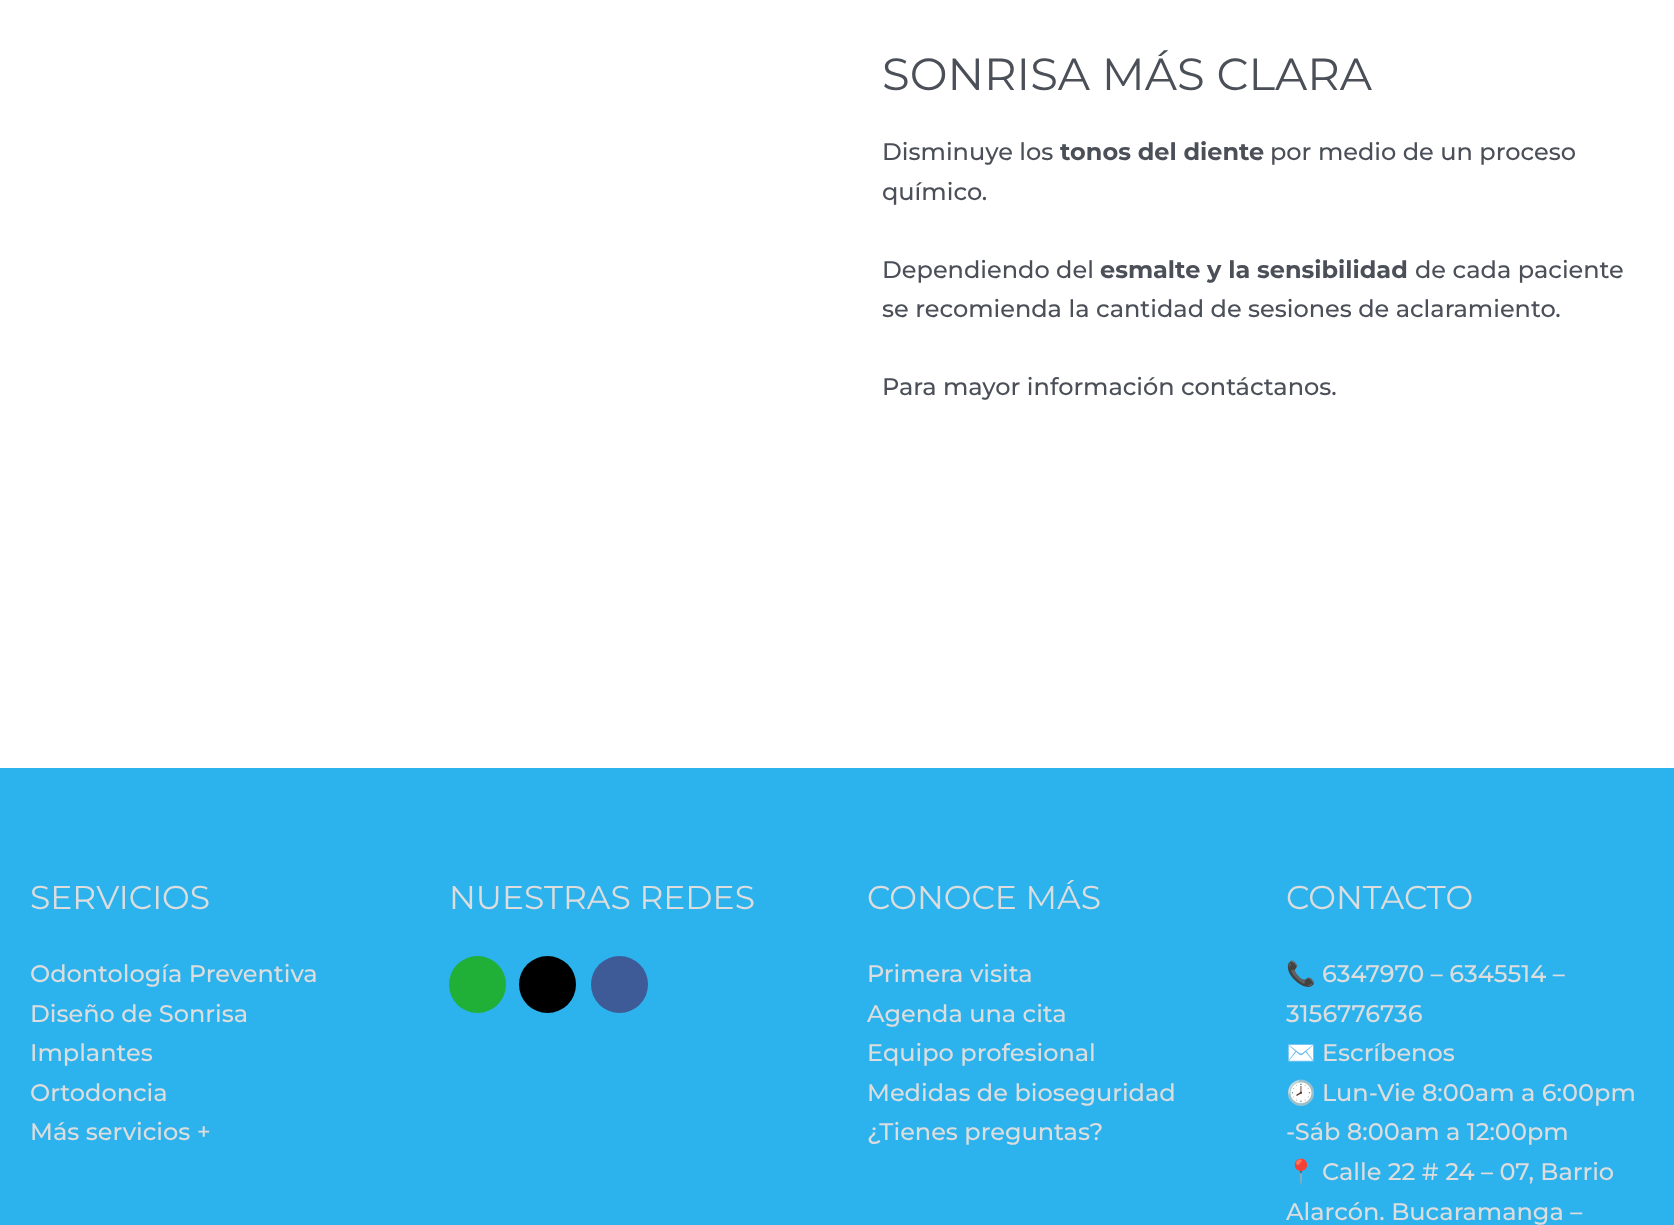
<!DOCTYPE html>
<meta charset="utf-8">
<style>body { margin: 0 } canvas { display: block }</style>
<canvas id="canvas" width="1674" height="1225"></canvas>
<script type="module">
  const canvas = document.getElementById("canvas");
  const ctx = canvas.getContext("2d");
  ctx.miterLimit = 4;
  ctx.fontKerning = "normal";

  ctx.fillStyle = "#ffffff";
  ctx.fillRect(0, 0, 1674, 1225);
  ctx.font = "45px Montserrat";
  ctx.fillStyle = "#4b4f58";
  ctx.fillText("SONRISA MÁS CLARA", 882, 90);
  ctx.font = "500 24px Montserrat";
  ctx.fillText("Disminuye los", 882, 160);
  ctx.font = "bold 24px Montserrat";
  ctx.fillText("tonos del diente", 1060, 160);
  ctx.font = "500 24px Montserrat";
  ctx.fillText("por medio de un proceso", 1270, 160);
  ctx.fillText("químico.", 882, 200);
  ctx.fillText("Dependiendo del", 882, 278);
  ctx.font = "bold 24px Montserrat";
  ctx.fillText("esmalte y la sensibilidad", 1100, 278);
  ctx.font = "500 24px Montserrat";
  ctx.fillText("de cada paciente", 1415, 278);
  ctx.fillText("se recomienda la cantidad de sesiones de aclaramiento.", 882, 317);
  ctx.fillText("Para mayor información contáctanos.", 882, 395);
  ctx.fillStyle = "#2cb3ee";
  ctx.fillRect(0, 768, 1674, 457);
  ctx.font = "33px Montserrat";
  ctx.fillStyle = "#dddddd";
  ctx.fillText("SERVICIOS", 30, 909);
  ctx.font = "500 24px Montserrat";
  ctx.fillText("Odontología Preventiva", 30, 982);
  ctx.fillText("Diseño de Sonrisa", 30, 1022);
  ctx.fillText("Implantes", 30, 1061);
  ctx.fillText("Ortodoncia", 30, 1101);
  ctx.fillText("Más servicios +", 30, 1140);
  ctx.font = "33px Montserrat";
  ctx.fillText("NUESTRAS REDES", 449, 909);
  ctx.fillStyle = "#20b038";
  ctx.beginPath();
  ctx.arc(477.5, 984.5, 28.5, 0, Math.PI * 2);
  ctx.fill();
  ctx.fillStyle = "#000000";
  ctx.beginPath();
  ctx.arc(547.5, 984.5, 28.5, 0, Math.PI * 2);
  ctx.fill();
  ctx.fillStyle = "#3e5b98";
  ctx.beginPath();
  ctx.arc(619.5, 984.5, 28.5, 0, Math.PI * 2);
  ctx.fill();
  ctx.fillStyle = "#dddddd";
  ctx.fillText("CONOCE MÁS", 867, 909);
  ctx.font = "500 24px Montserrat";
  ctx.fillText("Primera visita", 867, 982);
  ctx.fillText("Agenda una cita", 867, 1022);
  ctx.fillText("Equipo profesional", 867, 1061);
  ctx.fillText("Medidas de bioseguridad", 867, 1101);
  ctx.fillText("¿Tienes preguntas?", 867, 1140);
  ctx.font = "33px Montserrat";
  ctx.fillText("CONTACTO", 1286, 909);
  ctx.font = "24px Noto Color Emoji";
  ctx.fillText("📞", 1286, 982);
  ctx.font = "500 24px Montserrat";
  ctx.fillText("6347970 – 6345514 –", 1322, 982);
  ctx.fillText("3156776736", 1286, 1022);
  ctx.font = "24px Noto Color Emoji";
  ctx.fillText("✉️", 1286, 1061);
  ctx.font = "500 24px Montserrat";
  ctx.fillText("Escríbenos", 1322, 1061);
  ctx.font = "24px Noto Color Emoji";
  ctx.fillText("🕗", 1286, 1101);
  ctx.font = "500 24px Montserrat";
  ctx.fillText("Lun-Vie 8:00am a 6:00pm", 1322, 1101);
  ctx.fillText("-Sáb 8:00am a 12:00pm", 1286, 1140);
  ctx.font = "24px Noto Color Emoji";
  ctx.fillText("📍", 1286, 1180);
  ctx.font = "500 24px Montserrat";
  ctx.fillText("Calle 22 # 24 – 07, Barrio", 1322, 1180);
  ctx.fillText("Alarcón. Bucaramanga –", 1286, 1220);
</script>
